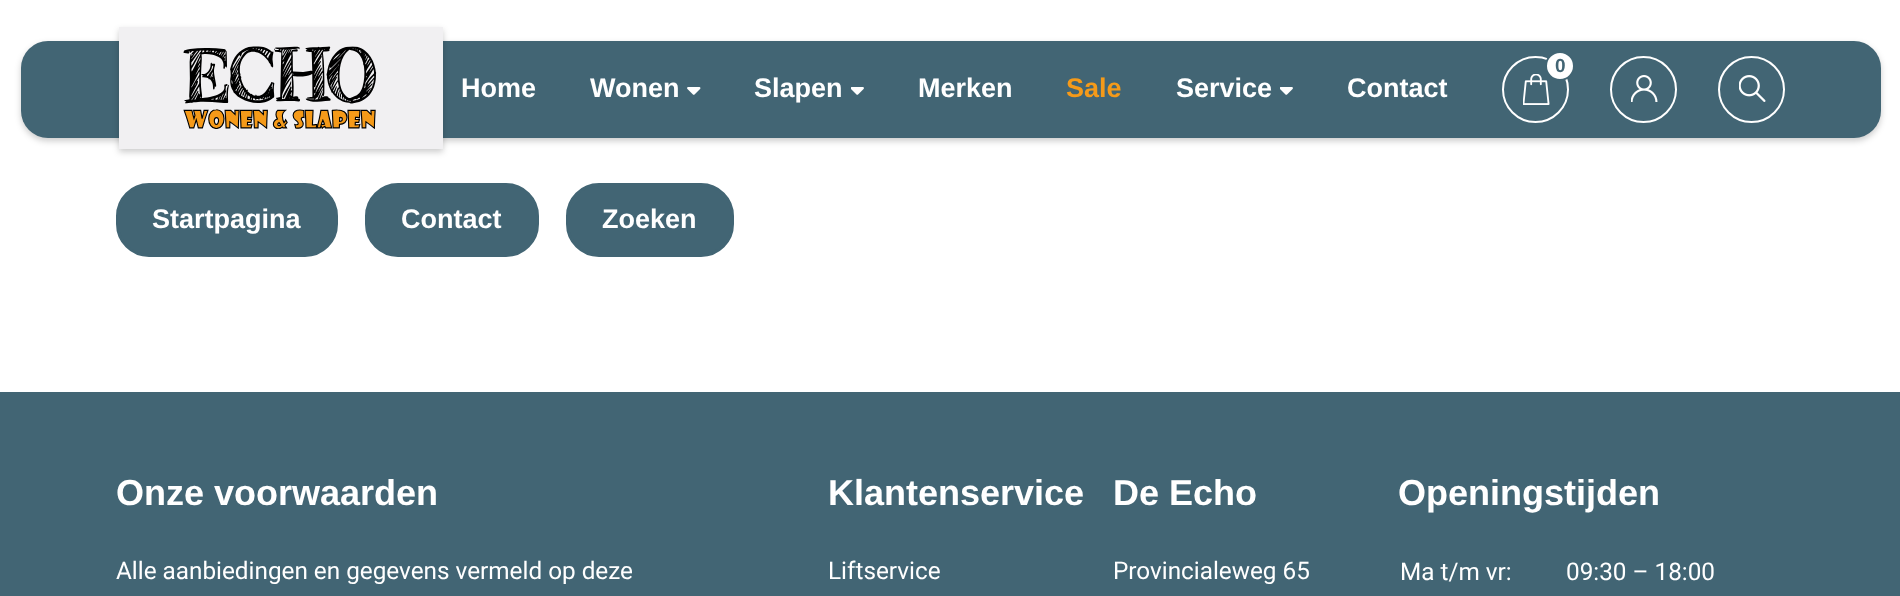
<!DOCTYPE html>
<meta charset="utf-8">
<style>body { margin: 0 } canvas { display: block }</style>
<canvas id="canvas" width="1900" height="596"></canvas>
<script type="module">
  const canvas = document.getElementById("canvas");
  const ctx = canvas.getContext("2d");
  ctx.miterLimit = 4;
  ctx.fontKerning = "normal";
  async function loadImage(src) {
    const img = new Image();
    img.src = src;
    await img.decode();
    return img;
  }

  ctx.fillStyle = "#ffffff";
  ctx.fillRect(0, 0, 1900, 596);
  ctx.fillStyle = "rgba(0, 0, 0, 0.2)";
  ctx.filter = "blur(3px)";
  ctx.beginPath();
  ctx.roundRect(21, 44, 1860, 97, 27);
  ctx.fill();
  ctx.filter = "none";
  ctx.fillStyle = "#426574";
  ctx.beginPath();
  ctx.roundRect(21, 41, 1860, 97, 27);
  ctx.fill();
  ctx.fillStyle = "rgba(0, 0, 0, 0.2)";
  ctx.filter = "blur(3px)";
  ctx.beginPath();
  ctx.rect(119, 30, 324, 122);
  ctx.fill();
  ctx.filter = "none";
  ctx.fillStyle = "#f1f0f2";
  ctx.fillRect(119, 27, 324, 122);
  ctx.drawImage(await loadImage("img1.png"), 183, 46, 194, 83);
  ctx.beginPath();
  ctx.arc(1535.5, 89.5, 32.5, 0, Math.PI * 2);
  ctx.strokeStyle = "#ffffff";
  ctx.lineWidth = 2;
  ctx.stroke();
  ctx.drawImage(await loadImage("img2.png"), 1523, 74, 27, 31);
  ctx.fillStyle = "#ffffff";
  ctx.beginPath();
  ctx.arc(1560, 66, 14, 0, Math.PI * 2);
  ctx.fill();
  ctx.strokeStyle = "#426574";
  ctx.stroke();
  ctx.font = "bold 19px Liberation Sans";
  ctx.fillStyle = "#426574";
  ctx.fillText("0", 1555, 72);
  ctx.beginPath();
  ctx.arc(1643.5, 89.5, 32.5, 0, Math.PI * 2);
  ctx.strokeStyle = "#ffffff";
  ctx.stroke();
  ctx.drawImage(await loadImage("img3.png"), 1631, 75, 27, 27);
  ctx.beginPath();
  ctx.arc(1751.5, 89.5, 32.5, 0, Math.PI * 2);
  ctx.stroke();
  ctx.drawImage(await loadImage("img4.png"), 1739, 75, 27, 27);
  ctx.font = "bold 27px Liberation Sans";
  ctx.fillStyle = "#ffffff";
  ctx.fillText("Home", 461, 97);
  ctx.fillText("Wonen", 590, 97);
  ctx.drawImage(await loadImage("img5.png"), 687, 87, 14, 8);
  ctx.fillText("Slapen", 754, 97);
  ctx.drawImage(await loadImage("img6.png"), 851, 87, 13, 8);
  ctx.fillText("Merken", 918, 97);
  ctx.fillStyle = "#f59a19";
  ctx.fillText("Sale", 1066, 97);
  ctx.fillStyle = "#ffffff";
  ctx.fillText("Service", 1176, 97);
  ctx.drawImage(await loadImage("img6.png"), 1280, 87, 13, 8);
  ctx.fillText("Contact", 1347, 97);
  ctx.fillStyle = "#426574";
  ctx.beginPath();
  ctx.roundRect(117.5, 184.5, 219, 71, 31.5);
  ctx.fill();
  ctx.strokeStyle = "#426574";
  ctx.lineWidth = 3;
  ctx.stroke();
  ctx.fillStyle = "#ffffff";
  ctx.fillText("Startpagina", 152, 228);
  ctx.fillStyle = "#426574";
  ctx.beginPath();
  ctx.roundRect(366.5, 184.5, 171, 71, 31.5);
  ctx.fill();
  ctx.stroke();
  ctx.fillStyle = "#ffffff";
  ctx.fillText("Contact", 401, 228);
  ctx.fillStyle = "#426574";
  ctx.beginPath();
  ctx.roundRect(567.5, 184.5, 165, 71, 31.5);
  ctx.fill();
  ctx.stroke();
  ctx.fillStyle = "#ffffff";
  ctx.fillText("Zoeken", 602, 228);
  ctx.fillStyle = "#426574";
  ctx.fillRect(0, 392, 1900, 204);
  ctx.font = "bold 36px Liberation Sans";
  ctx.fillStyle = "#ffffff";
  ctx.fillText("Onze voorwaarden", 116, 505);
  ctx.font = "24.3px Roboto";
  ctx.fillText("Alle aanbiedingen en gegevens vermeld op deze", 116, 579);
  ctx.font = "bold 36px Liberation Sans";
  ctx.fillText("Klantenservice", 828, 505);
  ctx.font = "24.3px Roboto";
  ctx.fillText("Liftservice", 828, 579);
  ctx.font = "bold 36px Liberation Sans";
  ctx.fillText("De Echo", 1113, 505);
  ctx.font = "24.3px Roboto";
  ctx.fillText("Provincialeweg 65", 1113, 579);
  ctx.font = "bold 36px Liberation Sans";
  ctx.fillText("Openingstijden", 1398, 505);
  ctx.font = "24.3px Roboto";
  ctx.fillText("Ma t/m vr:", 1400, 580);
  ctx.fillText("09:30 – 18:00", 1566, 580);
</script>
